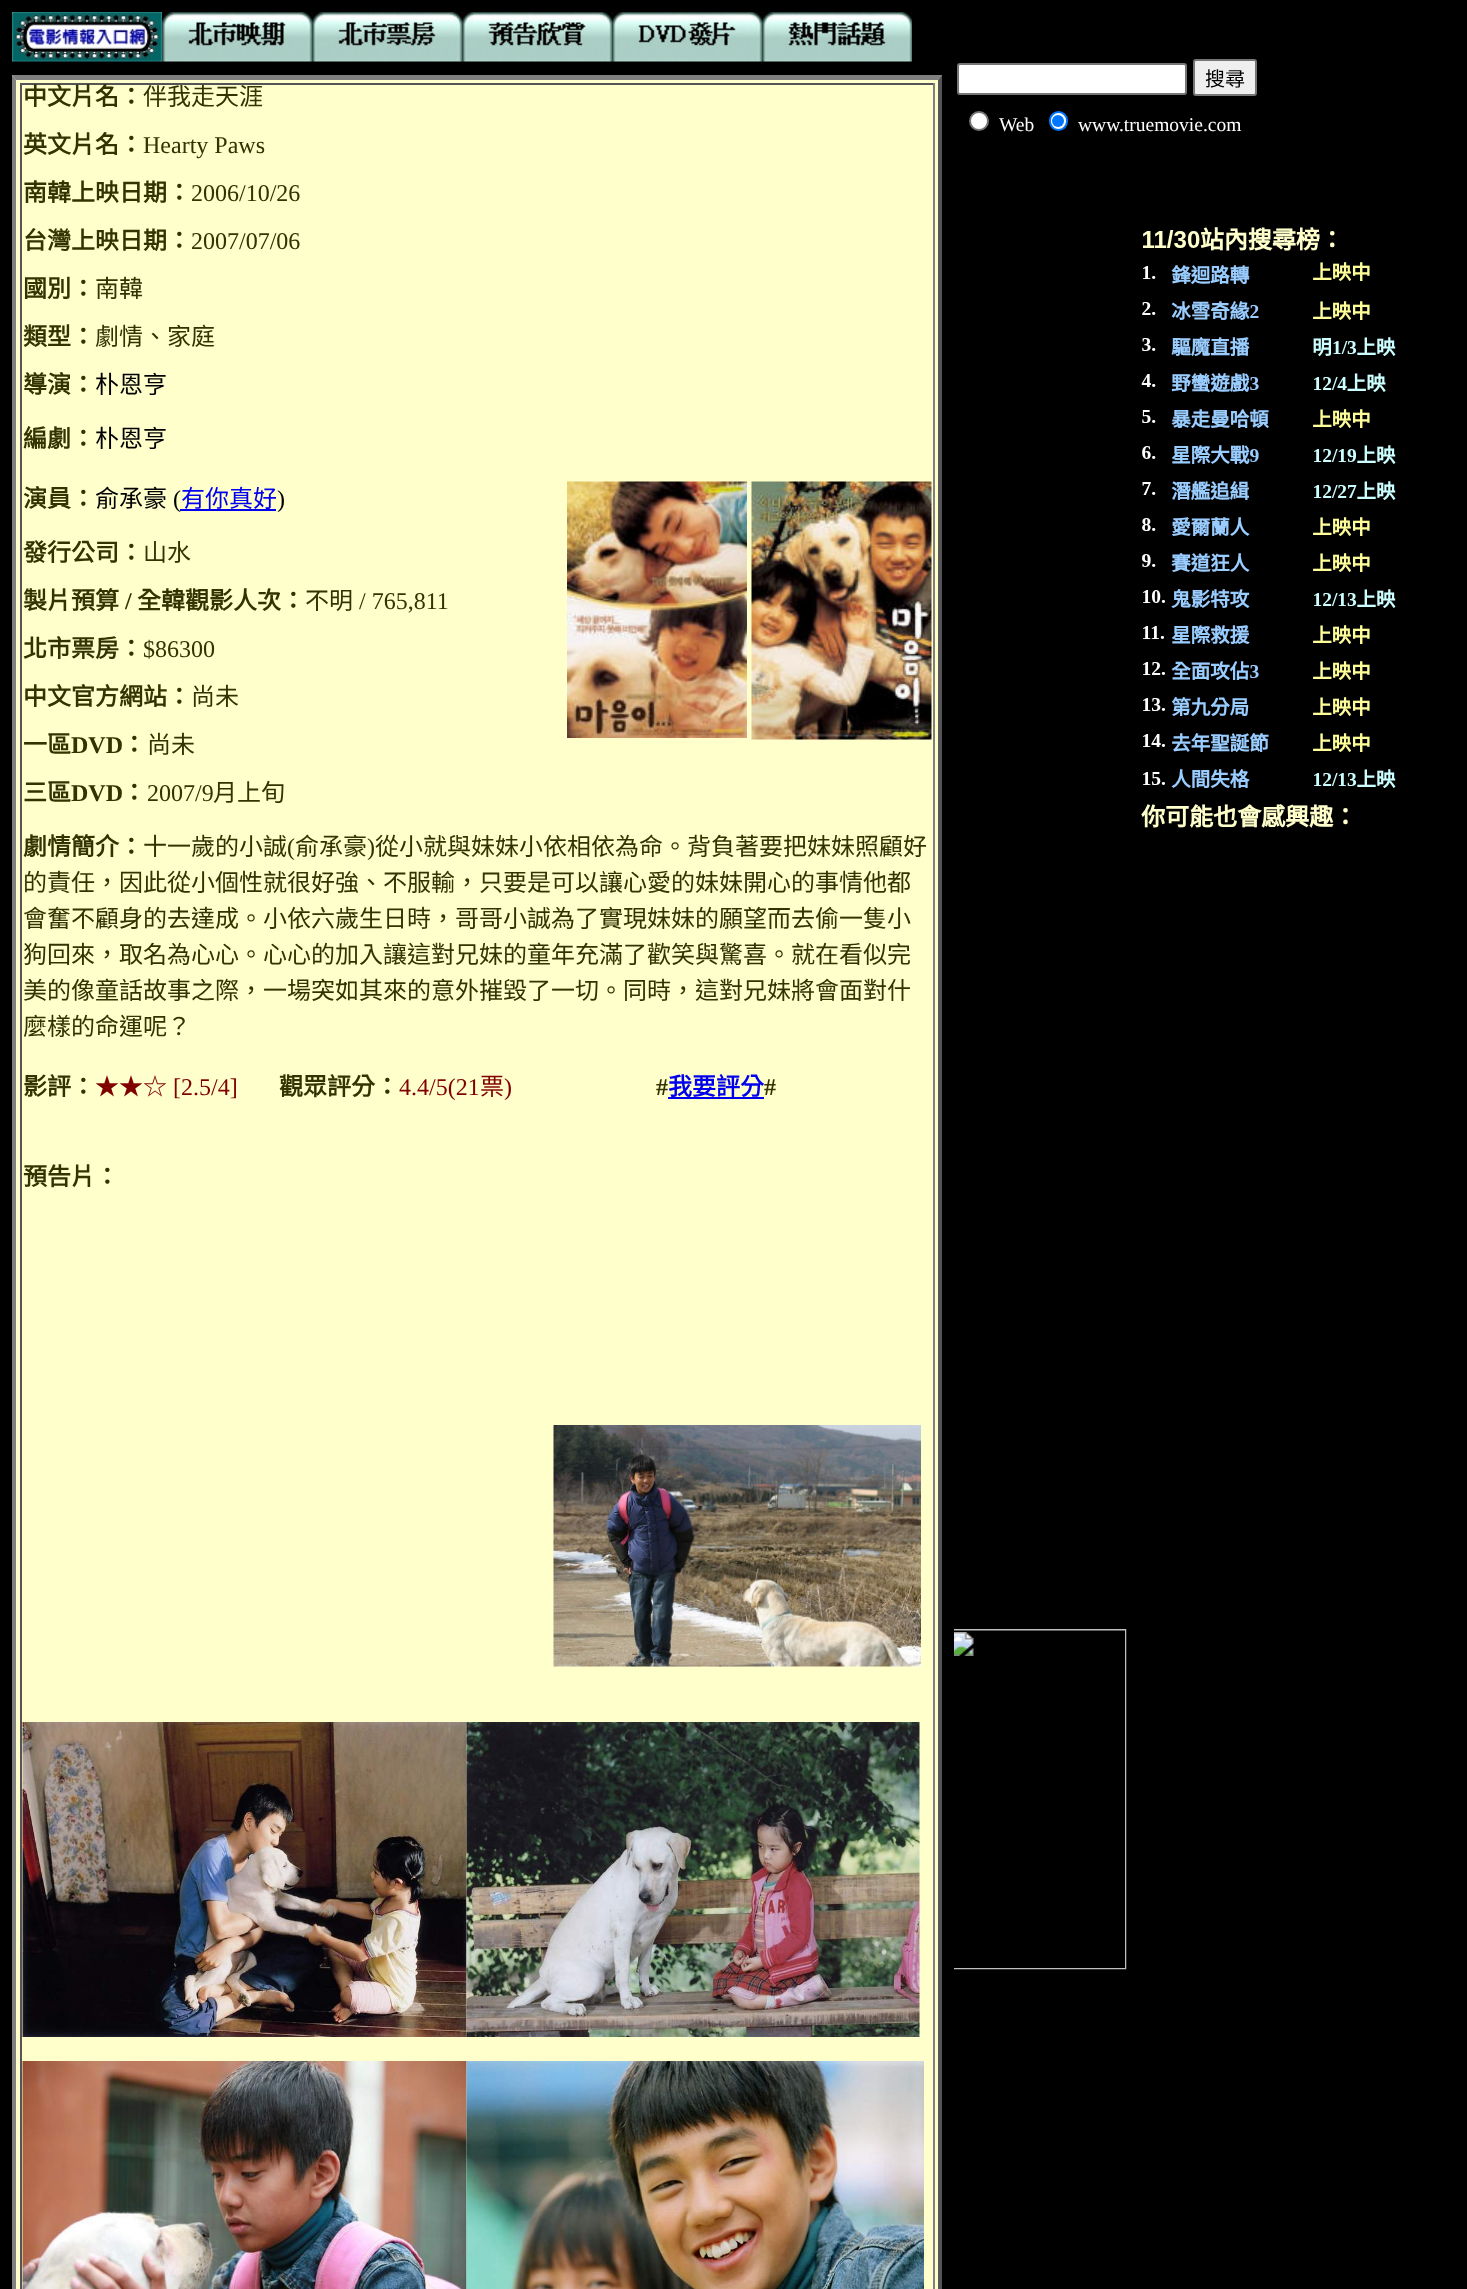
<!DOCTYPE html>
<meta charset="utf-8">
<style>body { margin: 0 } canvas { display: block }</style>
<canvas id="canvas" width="1467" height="2289"></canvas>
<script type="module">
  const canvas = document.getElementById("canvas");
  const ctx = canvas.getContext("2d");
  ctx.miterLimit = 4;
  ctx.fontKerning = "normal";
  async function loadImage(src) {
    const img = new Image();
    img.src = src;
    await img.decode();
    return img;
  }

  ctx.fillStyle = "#000000";
  ctx.fillRect(0, 0, 1467, 2289);
  ctx.drawImage(await loadImage("img1.png"), 12, 12, 150, 50);
  ctx.drawImage(await loadImage("img2.png"), 162, 12, 150, 50);
  ctx.drawImage(await loadImage("img3.png"), 312, 12, 150, 50);
  ctx.drawImage(await loadImage("img4.png"), 462, 12, 150, 50);
  ctx.drawImage(await loadImage("img5.png"), 612, 12, 150, 50);
  ctx.drawImage(await loadImage("img6.png"), 762, 12, 150, 50);
  ctx.fillStyle = "#ffffcc";
  ctx.fillRect(12, 75, 930, 2214);
  ctx.fillStyle = "#808080";
  ctx.beginPath();
  ctx.moveTo(12, 75);
  ctx.lineTo(942, 75);
  ctx.lineTo(938, 80);
  ctx.lineTo(16, 80);
  ctx.closePath();
  ctx.fill();
  ctx.fillStyle = "#555555";
  ctx.beginPath();
  ctx.moveTo(942, 75);
  ctx.lineTo(942, 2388);
  ctx.lineTo(938, 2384);
  ctx.lineTo(938, 80);
  ctx.closePath();
  ctx.fill();
  ctx.fillStyle = "#808080";
  ctx.beginPath();
  ctx.moveTo(12, 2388);
  ctx.lineTo(12, 75);
  ctx.lineTo(16, 80);
  ctx.lineTo(16, 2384);
  ctx.closePath();
  ctx.fill();
  ctx.fillStyle = "#555555";
  ctx.fillRect(20, 83, 915, 2);
  ctx.fillStyle = "#808080";
  ctx.fillRect(933, 83, 2, 2206);
  ctx.fillStyle = "#555555";
  ctx.fillRect(20, 83, 2, 2206);
  ctx.font = "bold 24px Noto Sans CJK TC";
  ctx.fillStyle = "#333300";
  ctx.fillText("中文片名：", 23, 105);
  ctx.font = "24px Noto Sans CJK TC";
  ctx.fillText("伴我走天涯", 143, 105);
  ctx.font = "bold 24px Noto Sans CJK TC";
  ctx.fillText("英文片名：", 23, 153);
  ctx.font = "24px Liberation Serif";
  ctx.fillText("Hearty Paws", 143, 153);
  ctx.font = "bold 24px Noto Sans CJK TC";
  ctx.fillText("南韓上映日期：", 23, 201);
  ctx.font = "24px Liberation Serif";
  ctx.fillText("2006/10/26", 191, 201);
  ctx.font = "bold 24px Noto Sans CJK TC";
  ctx.fillText("台灣上映日期：", 23, 249);
  ctx.font = "24px Liberation Serif";
  ctx.fillText("2007/07/06", 191, 249);
  ctx.font = "bold 24px Noto Sans CJK TC";
  ctx.fillText("國別：", 23, 297);
  ctx.font = "24px Noto Sans CJK TC";
  ctx.fillText("南韓", 95, 297);
  ctx.font = "bold 24px Noto Sans CJK TC";
  ctx.fillText("類型：", 23, 345);
  ctx.font = "24px Noto Sans CJK TC";
  ctx.fillText("劇情、家庭", 95, 345);
  ctx.font = "bold 24px Noto Sans CJK TC";
  ctx.fillText("導演：", 23, 393);
  ctx.font = "24px Noto Sans CJK TC";
  ctx.fillStyle = "#000000";
  ctx.fillText("朴恩亨", 95, 393);
  ctx.font = "bold 24px Noto Sans CJK TC";
  ctx.fillStyle = "#333300";
  ctx.fillText("編劇：", 23, 447);
  ctx.font = "24px Noto Sans CJK TC";
  ctx.fillStyle = "#000000";
  ctx.fillText("朴恩亨", 95, 447);
  ctx.font = "bold 24px Noto Sans CJK TC";
  ctx.fillStyle = "#333300";
  ctx.fillText("演員：", 23, 507);
  ctx.font = "24px Noto Sans CJK TC";
  ctx.fillStyle = "#000000";
  ctx.fillText("俞承豪", 95, 507);
  ctx.font = "24px Liberation Serif";
  ctx.fillText("(", 173, 507);
  ctx.fillStyle = "#0000ee";
  ctx.fillRect(180, 509, 96, 2);
  ctx.font = "24px Noto Sans CJK TC";
  ctx.fillText("有你真好", 181, 507);
  ctx.font = "24px Liberation Serif";
  ctx.fillStyle = "#000000";
  ctx.fillText(")", 277, 507);
  ctx.drawImage(await loadImage("img7.png"), 567, 481, 180, 257);
  ctx.drawImage(await loadImage("img8.png"), 751, 481, 181, 259);
  ctx.font = "bold 24px Noto Sans CJK TC";
  ctx.fillStyle = "#333300";
  ctx.fillText("發行公司：", 23, 561);
  ctx.font = "24px Noto Sans CJK TC";
  ctx.fillText("山水", 143, 561);
  ctx.font = "bold 24px Noto Sans CJK TC";
  ctx.fillText("製片預算", 23, 609);
  ctx.font = "bold 24px Liberation Serif";
  ctx.fillText("/", 125, 609);
  ctx.font = "bold 24px Noto Sans CJK TC";
  ctx.fillText("全韓觀影人次：", 137, 609);
  ctx.font = "24px Noto Sans CJK TC";
  ctx.fillText("不明", 305, 609);
  ctx.font = "24px Liberation Serif";
  ctx.fillText("/ 765,811", 359, 609);
  ctx.font = "bold 24px Noto Sans CJK TC";
  ctx.fillText("北市票房：", 23, 657);
  ctx.font = "24px Liberation Serif";
  ctx.fillText("$86300", 143, 657);
  ctx.font = "bold 24px Noto Sans CJK TC";
  ctx.fillText("中文官方網站：", 23, 705);
  ctx.font = "24px Noto Sans CJK TC";
  ctx.fillText("尚未", 191, 705);
  ctx.font = "bold 24px Noto Sans CJK TC";
  ctx.fillText("一區", 23, 753);
  ctx.font = "bold 24px Liberation Serif";
  ctx.fillText("DVD", 71, 753);
  ctx.font = "bold 24px Noto Sans CJK TC";
  ctx.fillText("：", 122, 753);
  ctx.font = "24px Noto Sans CJK TC";
  ctx.fillText("尚未", 147, 753);
  ctx.font = "bold 24px Noto Sans CJK TC";
  ctx.fillText("三區", 23, 801);
  ctx.font = "bold 24px Liberation Serif";
  ctx.fillText("DVD", 71, 801);
  ctx.font = "bold 24px Noto Sans CJK TC";
  ctx.fillText("：", 122, 801);
  ctx.font = "24px Liberation Serif";
  ctx.fillText("2007/9", 147, 801);
  ctx.font = "24px Noto Sans CJK TC";
  ctx.fillText("月上旬", 213, 801);
  ctx.font = "bold 24px Noto Sans CJK TC";
  ctx.fillText("劇情簡介：", 23, 855);
  ctx.font = "24px Noto Sans CJK TC";
  ctx.fillText("十一歲的小誠", 143, 855);
  ctx.font = "24px Liberation Serif";
  ctx.fillText("(", 287, 855);
  ctx.font = "24px Noto Sans CJK TC";
  ctx.fillText("俞承豪", 295, 855);
  ctx.font = "24px Liberation Serif";
  ctx.fillText(")", 367, 855);
  ctx.font = "24px Noto Sans CJK TC";
  ctx.fillText("從小就與妹妹小依相依為命。背負著要把妹妹照顧好", 375, 855);
  ctx.fillText("的責任，因此從小個性就很好強、不服輸，只要是可以讓心愛的妹妹開心的事情他都", 23, 891);
  ctx.fillText("會奮不顧身的去達成。小依六歲生日時，哥哥小誠為了實現妹妹的願望而去偷一隻小", 23, 927);
  ctx.fillText("狗回來，取名為心心。心心的加入讓這對兄妹的童年充滿了歡笑與驚喜。就在看似完", 23, 963);
  ctx.fillText("美的像童話故事之際，一場突如其來的意外摧毀了一切。同時，這對兄妹將會面對什", 23, 999);
  ctx.fillText("麼樣的命運呢？", 23, 1035);
  ctx.font = "bold 24px Noto Sans CJK TC";
  ctx.fillText("影評：", 23, 1095);
  ctx.font = "24px Noto Sans CJK TC";
  ctx.fillStyle = "#800000";
  ctx.fillText("★★☆", 95, 1095);
  ctx.font = "24px Liberation Serif";
  ctx.fillText("[2.5/4]", 173, 1095);
  ctx.font = "bold 24px Noto Sans CJK TC";
  ctx.fillStyle = "#333300";
  ctx.fillText("觀眾評分：", 279, 1095);
  ctx.font = "24px Liberation Serif";
  ctx.fillStyle = "#800000";
  ctx.fillText("4.4/5(21", 399, 1095);
  ctx.font = "24px Noto Sans CJK TC";
  ctx.fillText("票", 480, 1095);
  ctx.font = "24px Liberation Serif";
  ctx.fillText(")", 504, 1095);
  ctx.font = "bold 24px Liberation Serif";
  ctx.fillStyle = "#333300";
  ctx.fillText("#", 656, 1095);
  ctx.fillStyle = "#0000ee";
  ctx.fillRect(668, 1097, 96, 2);
  ctx.font = "bold 24px Noto Sans CJK TC";
  ctx.fillText("我要評分", 668, 1095);
  ctx.font = "bold 24px Liberation Serif";
  ctx.fillStyle = "#333300";
  ctx.fillText("#", 764, 1095);
  ctx.font = "bold 24px Noto Sans CJK TC";
  ctx.fillText("預告片：", 23, 1185);
  ctx.drawImage(await loadImage("img9.png"), 553, 1425, 368, 242);
  ctx.drawImage(await loadImage("img10.png"), 22, 1722, 445, 315);
  ctx.drawImage(await loadImage("img11.png"), 466, 1722, 454, 315);
  ctx.drawImage(await loadImage("img12.png"), 22, 2061, 445, 228);
  ctx.drawImage(await loadImage("img13.png"), 466, 2061, 458, 228);
  ctx.fillStyle = "#ffffff";
  ctx.beginPath();
  ctx.roundRect(958, 64, 228, 30, 2);
  ctx.fill();
  ctx.strokeStyle = "#767676";
  ctx.lineWidth = 2;
  ctx.stroke();
  ctx.fillStyle = "#efefef";
  ctx.beginPath();
  ctx.roundRect(1194, 60, 62, 35, 2);
  ctx.fill();
  ctx.stroke();
  ctx.font = "20px Noto Sans CJK TC";
  ctx.fillStyle = "#000000";
  ctx.fillText("搜尋", 1205, 86);
  ctx.fillStyle = "#ffffff";
  ctx.beginPath();
  ctx.arc(979, 121, 9, 0, Math.PI * 2);
  ctx.fill();
  ctx.stroke();
  ctx.font = "19.5px Liberation Serif";
  ctx.fillText("Web", 999, 131);
  ctx.beginPath();
  ctx.roundRect(1050, 112, 17, 18, 8.5);
  ctx.fill();
  ctx.strokeStyle = "#0075ff";
  ctx.stroke();
  ctx.fillStyle = "#0075ff";
  ctx.beginPath();
  ctx.arc(1058, 121, 6, 0, Math.PI * 2);
  ctx.fill();
  ctx.fillStyle = "#ffffff";
  ctx.fillText("www.truemovie.com", 1078, 131);
  ctx.drawImage(await loadImage("img14.png"), 954, 227, 442, 1743);
</script>
